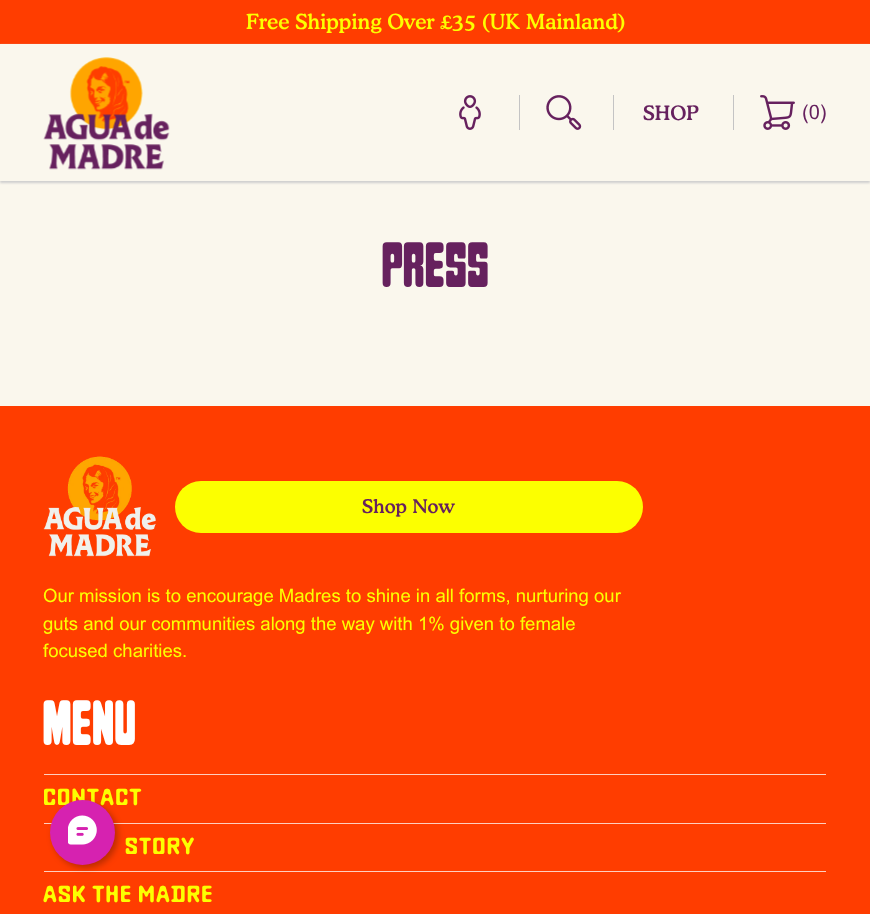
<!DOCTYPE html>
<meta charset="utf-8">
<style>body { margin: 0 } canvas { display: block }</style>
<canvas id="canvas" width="870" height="914"></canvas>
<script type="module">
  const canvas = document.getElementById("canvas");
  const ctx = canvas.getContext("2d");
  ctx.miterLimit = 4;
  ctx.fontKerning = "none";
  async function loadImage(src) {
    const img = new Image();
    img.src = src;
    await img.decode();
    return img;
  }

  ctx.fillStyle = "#ff3d00";
  ctx.fillRect(0, 0, 870, 914);
  ctx.font = "500 20.9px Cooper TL";
  ctx.fillStyle = "#fcff00";
  ctx.fillText("Free Shipping Over £35 (UK Mainland)", 246, 29);
  ctx.fillStyle = "#faf7ed";
  ctx.fillRect(0, 181, 870, 225);
  ctx.fillStyle = "#cecece";
  ctx.filter = "blur(1px)";
  ctx.beginPath();
  ctx.rect(0, 45, 870, 138);
  ctx.fill();
  ctx.filter = "none";
  ctx.fillStyle = "#faf7ed";
  ctx.fillRect(0, 44, 870, 137);
  ctx.drawImage(await loadImage("img1.png"), 43, 57, 127, 113);
  ctx.drawImage(await loadImage("img2.png"), 459, 95, 22, 35);
  ctx.fillStyle = "#c4c4c4";
  ctx.fillRect(519, 95, 1, 35);
  ctx.drawImage(await loadImage("img3.png"), 546, 95, 36, 35);
  ctx.fillRect(613, 95, 1, 35);
  ctx.font = "500 20px Cooper TL";
  ctx.fillStyle = "#66215e";
  ctx.fillText("SHOP", 643, 120);
  ctx.fillStyle = "#c4c4c4";
  ctx.fillRect(733, 95, 1, 35);
  ctx.drawImage(await loadImage("img4.png"), 760, 95, 35, 35);
  ctx.font = "20px Arial";
  ctx.fillStyle = "#66215e";
  ctx.fillText("(0)", 802, 119);
  ctx.letterSpacing = "1.25px";
  ctx.font = "64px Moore";
  ctx.fillText("Press", 382, 287);
  ctx.drawImage(await loadImage("img5.png"), 43, 456, 113, 101);
  ctx.fillStyle = "#fcff00";
  ctx.beginPath();
  ctx.roundRect(175, 481, 468, 52, 26);
  ctx.fill();
  ctx.letterSpacing = "0px";
  ctx.font = "500 19px Cooper TL";
  ctx.fillStyle = "#66215e";
  ctx.fillText("Shop Now", 362, 513);
  ctx.font = "18.55px Arial";
  ctx.fillStyle = "#fcff00";
  ctx.fillText("Our mission is to encourage Madres to shine in all forms, nurturing our", 43, 602);
  ctx.fillText("guts and our communities along the way with 1% given to female", 43, 630);
  ctx.fillText("focused charities.", 43, 657);
  ctx.letterSpacing = "1.25px";
  ctx.font = "64px Moore";
  ctx.fillStyle = "#ffffff";
  ctx.fillText("Menu", 43, 745);
  ctx.fillStyle = "#ffcfbf";
  ctx.fillRect(44, 774, 782, 1);
  ctx.fillRect(44, 823, 782, 1);
  ctx.font = "500 23.25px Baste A";
  ctx.fillStyle = "#fcff00";
  ctx.fillText("CONTACT", 43, 805);
  ctx.fillStyle = "#ffcfbf";
  ctx.fillRect(44, 871, 782, 1);
  ctx.fillStyle = "#fcff00";
  ctx.fillText("STORY", 125, 854);
  ctx.fillText("ASK THE MADRE", 43, 902);
  ctx.fillStyle = "rgba(0, 0, 0, 0.27)";
  ctx.filter = "blur(3px)";
  ctx.beginPath();
  ctx.roundRect(53, 803, 65, 65, 32.5);
  ctx.fill();
  ctx.filter = "none";
  ctx.fillStyle = "#d622b0";
  ctx.beginPath();
  ctx.arc(82.5, 832.5, 32.5, 0, Math.PI * 2);
  ctx.fill();
  ctx.drawImage(await loadImage("img6.png"), 68, 815, 29, 30);
</script>
